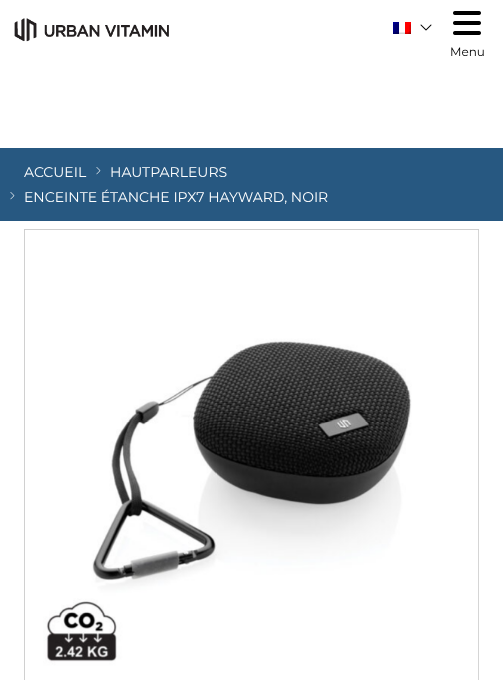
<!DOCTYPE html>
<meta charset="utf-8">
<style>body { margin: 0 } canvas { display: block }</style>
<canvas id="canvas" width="503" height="680"></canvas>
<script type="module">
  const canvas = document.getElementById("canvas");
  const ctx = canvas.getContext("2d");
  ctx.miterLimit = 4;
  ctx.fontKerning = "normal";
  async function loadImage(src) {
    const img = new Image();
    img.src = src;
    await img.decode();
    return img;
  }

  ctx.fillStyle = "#ffffff";
  ctx.fillRect(0, 0, 503, 680);
  ctx.drawImage(await loadImage("img1.png"), 14, 18, 155, 24);
  ctx.drawImage(await loadImage("img2.png"), 393, 22, 18, 12);
  ctx.drawImage(await loadImage("img3.png"), 420, 24, 12, 7);
  ctx.drawImage(await loadImage("img4.png"), 453, 11, 28, 24);
  ctx.font = "12px Montserrat";
  ctx.fillStyle = "#000000";
  ctx.fillText("Menu", 450, 56);
  ctx.fillStyle = "#275881";
  ctx.fillRect(0, 148, 503, 73);
  ctx.font = "14px Montserrat";
  ctx.fillStyle = "#ffffff";
  ctx.fillText("ACCUEIL", 24, 177);
  ctx.drawImage(await loadImage("img5.png"), 96, 167, 5, 8);
  ctx.fillText("HAUTPARLEURS", 110, 177);
  ctx.drawImage(await loadImage("img5.png"), 10, 192, 5, 8);
  ctx.fillText("ENCEINTE ÉTANCHE IPX7 HAYWARD, NOIR", 24, 202);
  ctx.strokeStyle = "#cccccc";
  ctx.strokeRect(24.5, 229.5, 454, 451);
  ctx.drawImage(await loadImage("img6.png"), 24, 229, 455, 451);
</script>
